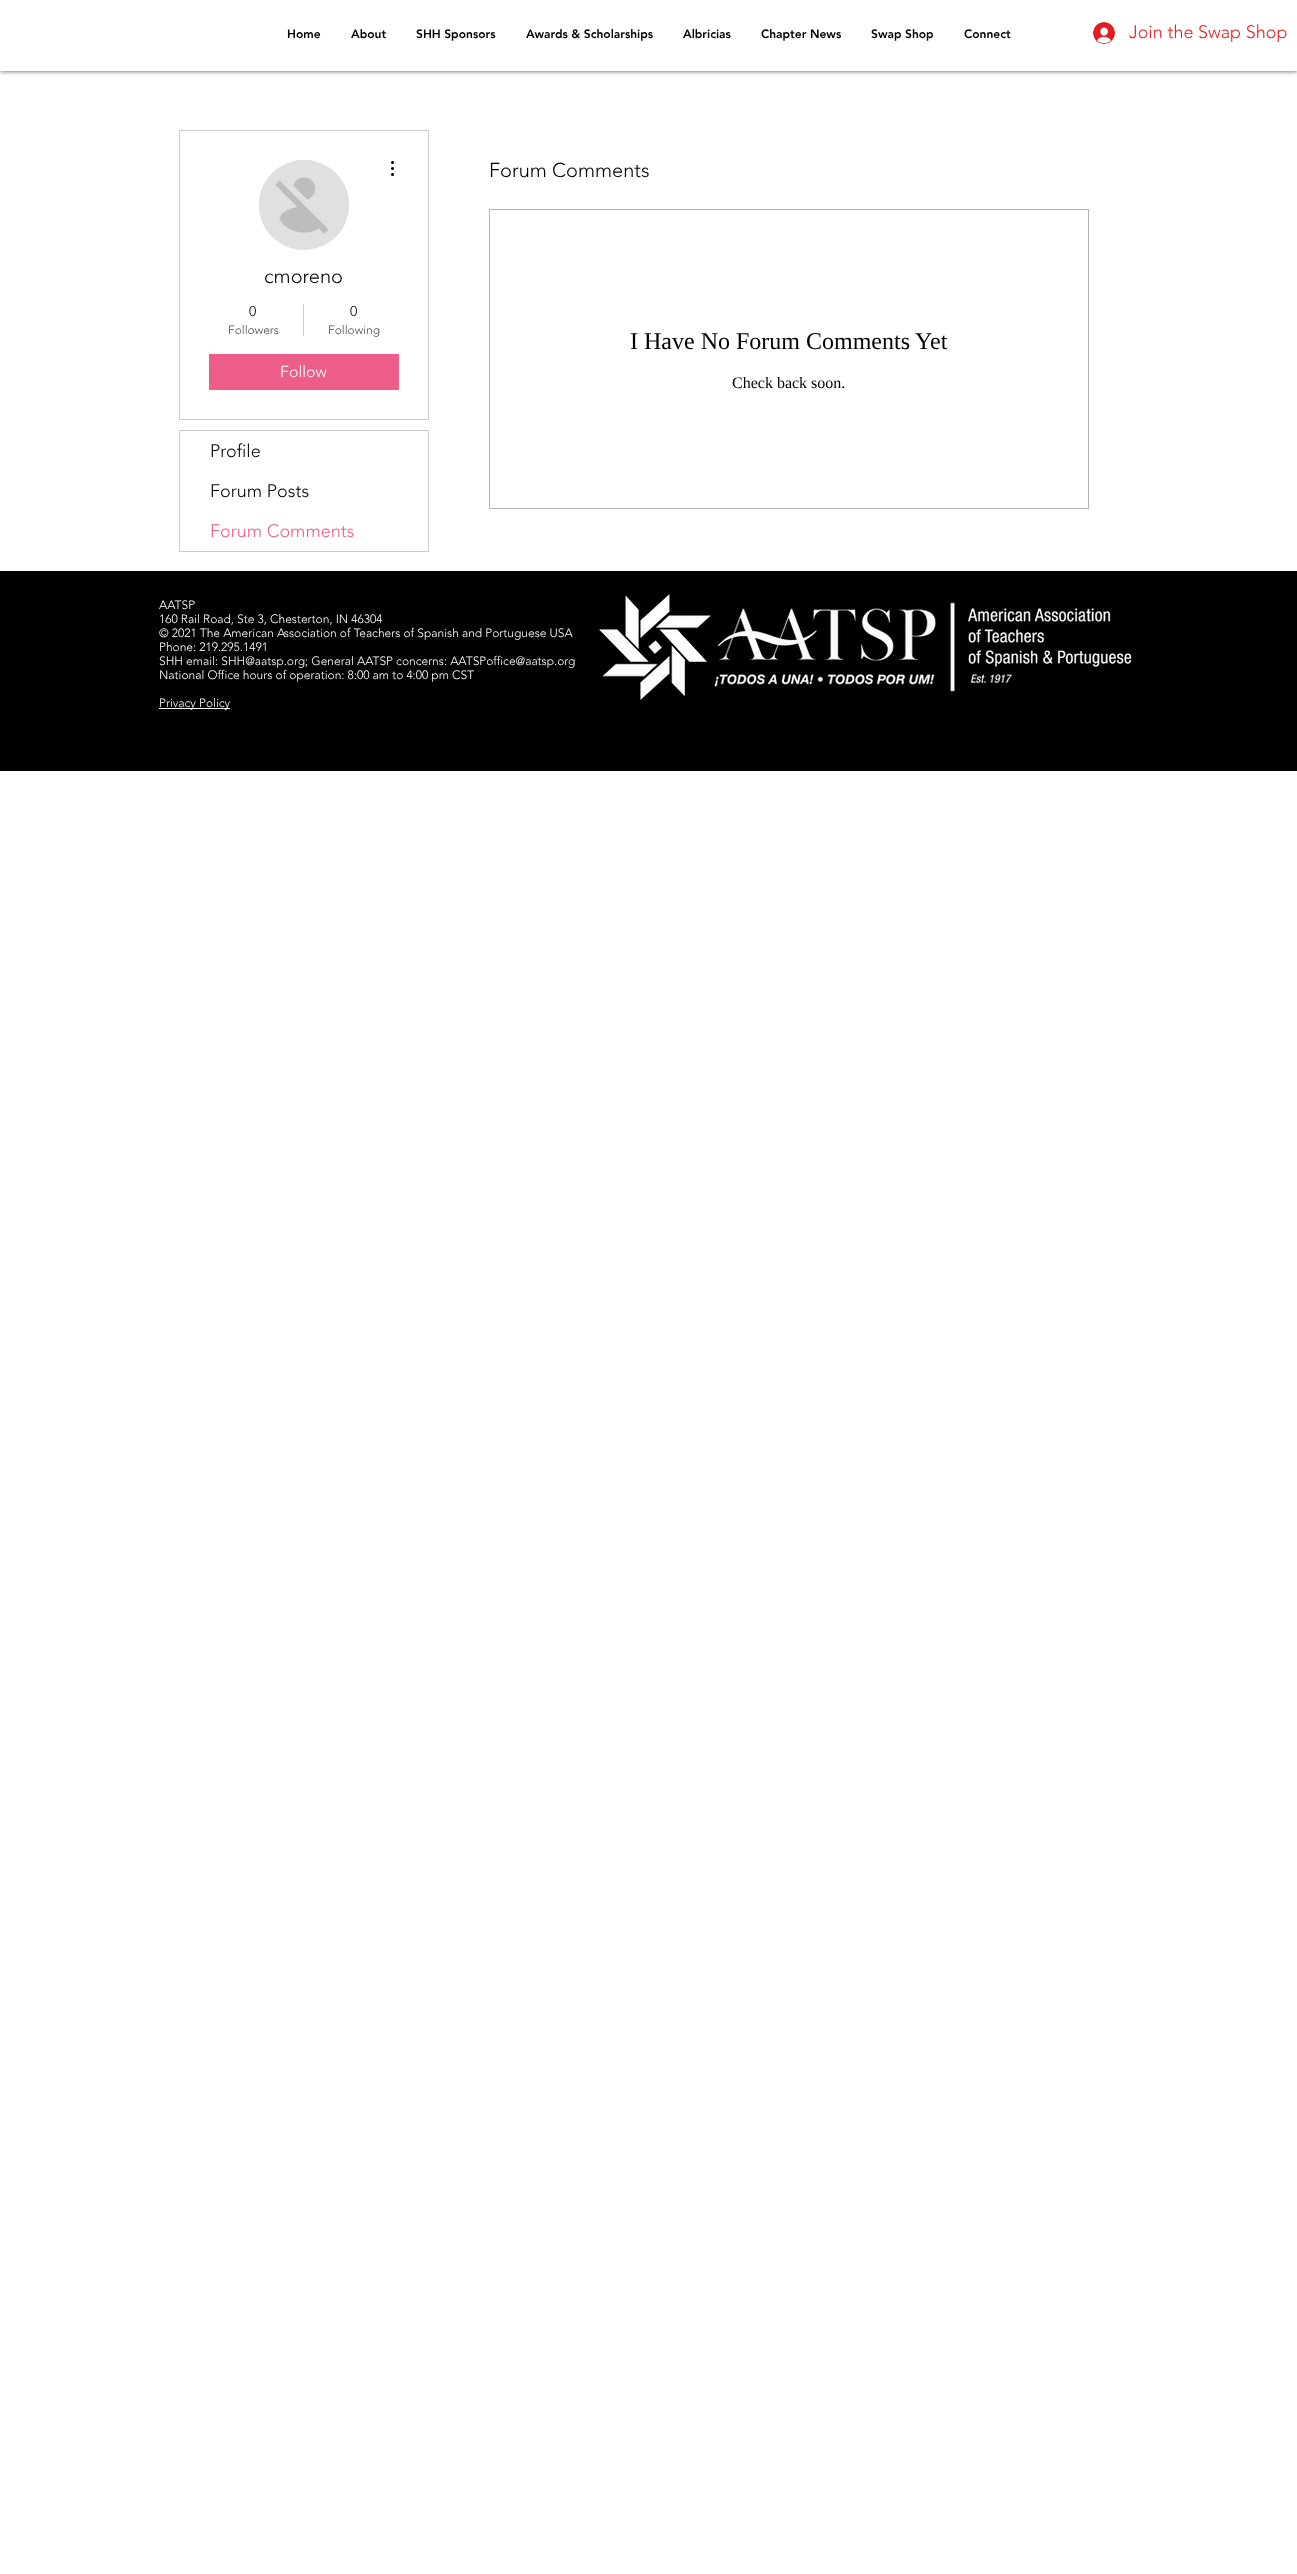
<!DOCTYPE html>
<meta charset="utf-8">
<style>body { margin: 0 } canvas { display: block }</style>
<canvas id="canvas" width="1297" height="2574"></canvas>
<script type="module">
  const canvas = document.getElementById("canvas");
  const ctx = canvas.getContext("2d");
  ctx.miterLimit = 4;
  ctx.fontKerning = "normal";
  async function loadImage(src) {
    const img = new Image();
    img.src = src;
    await img.decode();
    return img;
  }

  ctx.fillStyle = "#ffffff";
  ctx.fillRect(0, 0, 1297, 2574);
  ctx.save();
  ctx.beginPath();
  ctx.rect(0, 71, 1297, 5);
  ctx.clip();
  ctx.fillStyle = "rgba(0, 0, 0, 0.7)";
  ctx.filter = "blur(2.5px)";
  ctx.beginPath();
  ctx.rect(0, 0, 1297, 71);
  ctx.fill();
  ctx.filter = "none";
  ctx.restore();
  ctx.font = "900 12px 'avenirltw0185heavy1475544'";
  ctx.fillStyle = "#000000";
  ctx.fillText("Home", 287, 38);
  ctx.fillText("About", 351, 38);
  ctx.fillText("SHH Sponsors", 416, 38);
  ctx.fillText("Awards & Scholarships", 526, 38);
  ctx.fillText("Albricias", 683, 38);
  ctx.fillText("Chapter News", 761, 38);
  ctx.fillText("Swap Shop", 871, 38);
  ctx.fillText("Connect", 964, 38);
  ctx.drawImage(await loadImage("img1.png"), 1093, 22, 22, 22);
  ctx.font = "300 18px 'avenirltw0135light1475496'";
  ctx.fillStyle = "#e21c21";
  ctx.fillText("Join the Swap Shop", 1129, 38);
  ctx.strokeStyle = "#cccccc";
  ctx.strokeRect(179.5, 130.5, 249, 289);
  ctx.fillStyle = "#d8d8d8";
  ctx.beginPath();
  ctx.arc(304, 205, 45, 0, Math.PI * 2);
  ctx.fill();
  ctx.drawImage(await loadImage("img2.png"), 259, 160, 90, 90);
  ctx.drawImage(await loadImage("img3.png"), 391, 161, 3, 15);
  ctx.font = "300 20px 'avenirltw0135light1475496'";
  ctx.fillStyle = "#000000";
  ctx.fillText("cmoreno", 264, 283);
  ctx.font = "300 14px 'avenirltw0135light1475496'";
  ctx.fillText("0", 249, 316);
  ctx.font = "300 12px 'avenirltw0135light1475496'";
  ctx.fillStyle = "#4d4d4d";
  ctx.fillText("Followers", 228, 334);
  ctx.fillStyle = "#cccccc";
  ctx.fillRect(303, 304, 1, 32);
  ctx.font = "300 14px 'avenirltw0135light1475496'";
  ctx.fillStyle = "#000000";
  ctx.fillText("0", 350, 316);
  ctx.font = "300 12px 'avenirltw0135light1475496'";
  ctx.fillStyle = "#4d4d4d";
  ctx.fillText("Following", 328, 334);
  ctx.fillStyle = "#ec5e87";
  ctx.fillRect(209, 354, 190, 36);
  ctx.font = "300 16px 'avenirltw0135light1475496'";
  ctx.fillStyle = "#ffffff";
  ctx.fillText("Follow", 280, 377);
  ctx.strokeRect(179.5, 430.5, 249, 121);
  ctx.font = "300 18px 'avenirltw0135light1475496'";
  ctx.fillStyle = "#000000";
  ctx.fillText("Profile", 210, 457);
  ctx.fillText("Forum Posts", 210, 497);
  ctx.fillStyle = "#ec5e87";
  ctx.fillText("Forum Comments", 210, 537);
  ctx.font = "300 20px 'avenirltw0135light1475496'";
  ctx.fillStyle = "#000000";
  ctx.fillText("Forum Comments", 489, 177);
  ctx.strokeStyle = "#b3b3b3";
  ctx.strokeRect(489.5, 209.5, 599, 299);
  ctx.font = "24px Liberation Serif";
  ctx.fillText("I Have No Forum Comments Yet", 630, 349);
  ctx.font = "16px Liberation Serif";
  ctx.fillText("Check back soon.", 732, 388);
  ctx.fillRect(0, 571, 1297, 200);
  ctx.font = "300 12px 'avenirltw0135light1475496'";
  ctx.fillStyle = "#ffffff";
  ctx.fillText("AATSP", 159, 609);
  ctx.fillText("160 Rail Road, Ste 3, Chesterton, IN 46304", 159, 623);
  ctx.fillText("© 2021 The American Association of Teachers of Spanish and Portuguese USA", 159, 637);
  ctx.fillText("Phone: 219.295.1491", 159, 651);
  ctx.fillText("SHH email: SHH@aatsp.org; General AATSP concerns: AATSPoffice@aatsp.org", 159, 665);
  ctx.fillText("National Office hours of operation: 8:00 am to 4:00 pm CST", 159, 679);
  ctx.fillRect(159, 708, 71, 1);
  ctx.fillText("Privacy Policy", 159, 707);
  ctx.drawImage(await loadImage("img4.png"), 599, 594, 533, 106);
</script>
